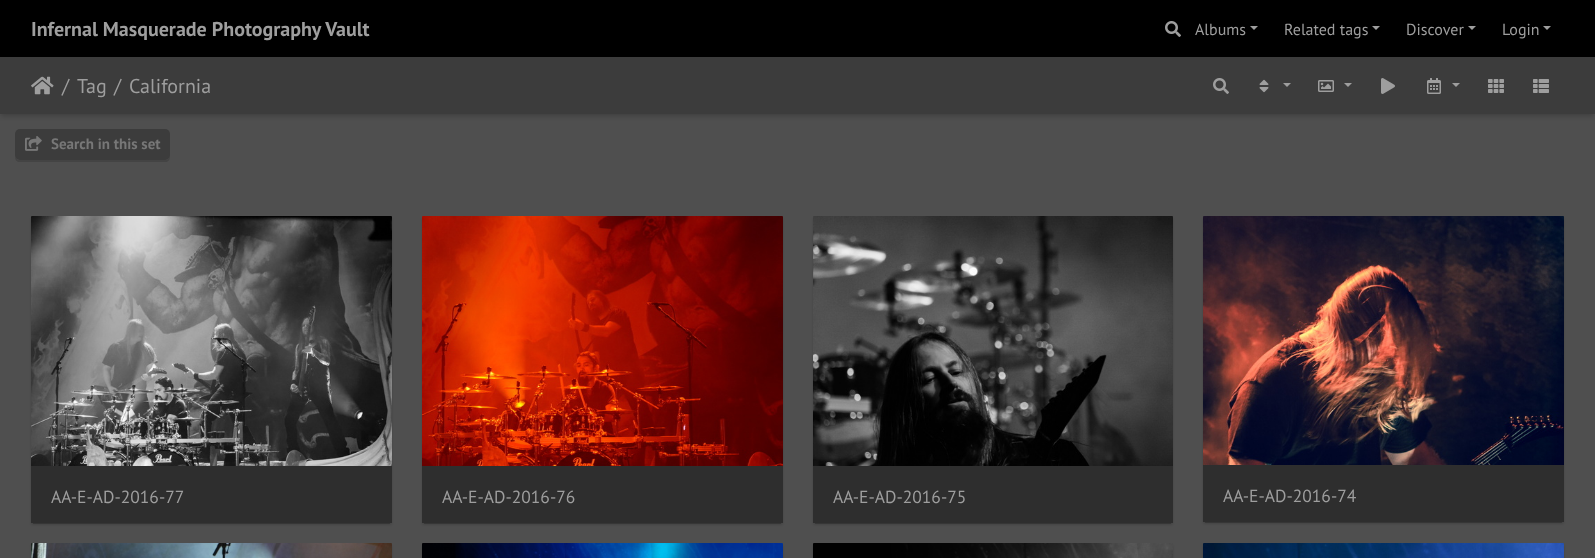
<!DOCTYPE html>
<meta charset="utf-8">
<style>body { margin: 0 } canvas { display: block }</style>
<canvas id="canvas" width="1595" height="558"></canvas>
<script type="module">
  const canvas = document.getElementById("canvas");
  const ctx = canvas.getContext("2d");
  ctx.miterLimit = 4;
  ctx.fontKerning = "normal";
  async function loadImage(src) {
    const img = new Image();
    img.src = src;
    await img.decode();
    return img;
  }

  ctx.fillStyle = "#4f4f4f";
  ctx.fillRect(0, 0, 1595, 558);
  ctx.fillStyle = "rgba(0, 0, 0, 0.2)";
  ctx.filter = "blur(2.5px)";
  ctx.beginPath();
  ctx.rect(1, 61, 1593, 55);
  ctx.fill();
  ctx.filter = "none";
  ctx.fillStyle = "#000000";
  ctx.fillRect(0, 0, 1595, 57);
  ctx.font = "bold 20px PT Sans";
  ctx.fillStyle = "#9e9e9e";
  ctx.fillText("Infernal Masquerade Photography Vault", 31, 36);
  ctx.drawImage(await loadImage("img1.png"), 1165, 21, 16, 16);
  ctx.font = "16px PT Sans";
  ctx.fillText("Albums", 1195, 35);
  ctx.beginPath();
  ctx.moveTo(1250, 26);
  ctx.lineTo(1258, 26);
  ctx.lineTo(1254, 30);
  ctx.closePath();
  ctx.fill();
  ctx.fillText("Related tags", 1284, 35);
  ctx.beginPath();
  ctx.moveTo(1372, 26);
  ctx.lineTo(1380, 26);
  ctx.lineTo(1376, 30);
  ctx.closePath();
  ctx.fill();
  ctx.fillText("Discover", 1406, 35);
  ctx.beginPath();
  ctx.moveTo(1468, 26);
  ctx.lineTo(1476, 26);
  ctx.lineTo(1472, 30);
  ctx.closePath();
  ctx.fill();
  ctx.fillText("Login", 1502, 35);
  ctx.beginPath();
  ctx.moveTo(1543, 26);
  ctx.lineTo(1551, 26);
  ctx.lineTo(1547, 30);
  ctx.closePath();
  ctx.fill();
  ctx.fillStyle = "#3c3c3c";
  ctx.fillRect(0, 57, 1595, 57);
  ctx.drawImage(await loadImage("img2.png"), 31, 76, 23, 19);
  ctx.font = "20px PT Sans";
  ctx.fillStyle = "#9e9e9e";
  ctx.fillText("/", 62, 93);
  ctx.fillText("Tag", 77, 93);
  ctx.fillText("/", 114, 93);
  ctx.fillText("California", 129, 93);
  ctx.drawImage(await loadImage("img3.png"), 1213, 78, 16, 16);
  ctx.drawImage(await loadImage("img4.png"), 1259, 79, 10, 14);
  ctx.beginPath();
  ctx.moveTo(1283, 83);
  ctx.lineTo(1291, 83);
  ctx.lineTo(1287, 87);
  ctx.closePath();
  ctx.fill();
  ctx.drawImage(await loadImage("img5.png"), 1318, 80, 16, 12);
  ctx.beginPath();
  ctx.moveTo(1344, 83);
  ctx.lineTo(1352, 83);
  ctx.lineTo(1348, 87);
  ctx.closePath();
  ctx.fill();
  ctx.drawImage(await loadImage("img6.png"), 1381, 78, 14, 16);
  ctx.drawImage(await loadImage("img7.png"), 1427, 78, 14, 16);
  ctx.beginPath();
  ctx.moveTo(1452, 83);
  ctx.lineTo(1460, 83);
  ctx.lineTo(1456, 87);
  ctx.closePath();
  ctx.fill();
  ctx.drawImage(await loadImage("img8.png"), 1488, 79, 16, 14);
  ctx.drawImage(await loadImage("img9.png"), 1533, 79, 16, 14);
  ctx.fillStyle = "#444444";
  ctx.beginPath();
  ctx.moveTo(15, 155);
  ctx.lineTo(15, 157);
  ctx.bezierCurveTo(15, 160, 17, 162, 20, 162);
  ctx.lineTo(165, 162);
  ctx.bezierCurveTo(168, 162, 170, 160, 170, 157);
  ctx.lineTo(170, 155);
  ctx.bezierCurveTo(170, 158, 168, 160, 165, 160);
  ctx.lineTo(20, 160);
  ctx.bezierCurveTo(17, 160, 15, 158, 15, 155);
  ctx.closePath();
  ctx.fill();
  ctx.fillStyle = "#3c3c3c";
  ctx.beginPath();
  ctx.roundRect(15, 129, 155, 31, 5);
  ctx.fill();
  ctx.drawImage(await loadImage("img10.png"), 25, 136, 17, 15);
  ctx.font = "bold 15px PT Sans";
  ctx.fillStyle = "#777777";
  ctx.fillText("Search in this set", 51, 149);
  ctx.fillStyle = "rgba(0, 0, 0, 0.2)";
  ctx.filter = "blur(0.5px)";
  ctx.beginPath();
  ctx.rect(33, 221, 357, 303);
  ctx.fill();
  ctx.filter = "none";
  ctx.fillStyle = "rgba(0, 0, 0, 0.14)";
  ctx.filter = "blur(1px)";
  ctx.beginPath();
  ctx.roundRect(31, 218, 361, 307, 2);
  ctx.fill();
  ctx.filter = "none";
  ctx.drawImage(await loadImage("img11.png"), 31, 216, 361, 250);
  ctx.fillStyle = "#2e2e2e";
  ctx.fillRect(31, 466, 361, 57);
  ctx.font = "17.5px PT Sans";
  ctx.fillStyle = "#9e9e9e";
  ctx.fillText("AA-E-AD-2016-77", 51, 503);
  ctx.fillStyle = "rgba(0, 0, 0, 0.2)";
  ctx.filter = "blur(0.5px)";
  ctx.beginPath();
  ctx.rect(424, 221, 357, 303);
  ctx.fill();
  ctx.filter = "none";
  ctx.fillStyle = "rgba(0, 0, 0, 0.14)";
  ctx.filter = "blur(1px)";
  ctx.beginPath();
  ctx.roundRect(422, 218, 361, 307, 2);
  ctx.fill();
  ctx.filter = "none";
  ctx.drawImage(await loadImage("img12.png"), 422, 216, 361, 250);
  ctx.fillStyle = "#2e2e2e";
  ctx.fillRect(422, 466, 361, 57);
  ctx.fillStyle = "#9e9e9e";
  ctx.fillText("AA-E-AD-2016-76", 442, 503);
  ctx.fillStyle = "rgba(0, 0, 0, 0.2)";
  ctx.filter = "blur(0.5px)";
  ctx.beginPath();
  ctx.rect(815, 221, 356, 303);
  ctx.fill();
  ctx.filter = "none";
  ctx.fillStyle = "rgba(0, 0, 0, 0.14)";
  ctx.filter = "blur(1px)";
  ctx.beginPath();
  ctx.roundRect(813, 218, 360, 307, 2);
  ctx.fill();
  ctx.filter = "none";
  ctx.drawImage(await loadImage("img13.png"), 813, 216, 360, 250);
  ctx.fillStyle = "#2e2e2e";
  ctx.fillRect(813, 466, 360, 57);
  ctx.fillStyle = "#9e9e9e";
  ctx.fillText("AA-E-AD-2016-75", 833, 503);
  ctx.fillStyle = "rgba(0, 0, 0, 0.2)";
  ctx.filter = "blur(0.5px)";
  ctx.beginPath();
  ctx.rect(1205, 221, 357, 302);
  ctx.fill();
  ctx.filter = "none";
  ctx.fillStyle = "rgba(0, 0, 0, 0.14)";
  ctx.filter = "blur(1px)";
  ctx.beginPath();
  ctx.roundRect(1203, 218, 361, 306, 2);
  ctx.fill();
  ctx.filter = "none";
  ctx.drawImage(await loadImage("img14.png"), 1203, 216, 361, 249);
  ctx.fillStyle = "#2e2e2e";
  ctx.fillRect(1203, 465, 361, 57);
  ctx.fillStyle = "#9e9e9e";
  ctx.fillText("AA-E-AD-2016-74", 1223, 502);
  ctx.fillStyle = "rgba(0, 0, 0, 0.14)";
  ctx.filter = "blur(1px)";
  ctx.beginPath();
  ctx.roundRect(31, 545, 361, 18, 2);
  ctx.fill();
  ctx.filter = "none";
  ctx.drawImage(await loadImage("img15.png"), 31, 543, 361, 15);
  ctx.filter = "blur(1px)";
  ctx.beginPath();
  ctx.roundRect(422, 545, 361, 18, 2);
  ctx.fill();
  ctx.filter = "none";
  ctx.drawImage(await loadImage("img16.png"), 422, 543, 361, 15);
  ctx.filter = "blur(1px)";
  ctx.beginPath();
  ctx.roundRect(813, 545, 360, 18, 2);
  ctx.fill();
  ctx.filter = "none";
  ctx.drawImage(await loadImage("img17.png"), 813, 543, 360, 15);
  ctx.filter = "blur(1px)";
  ctx.beginPath();
  ctx.roundRect(1203, 545, 361, 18, 2);
  ctx.fill();
  ctx.filter = "none";
  ctx.drawImage(await loadImage("img18.png"), 1203, 543, 361, 15);
</script>
